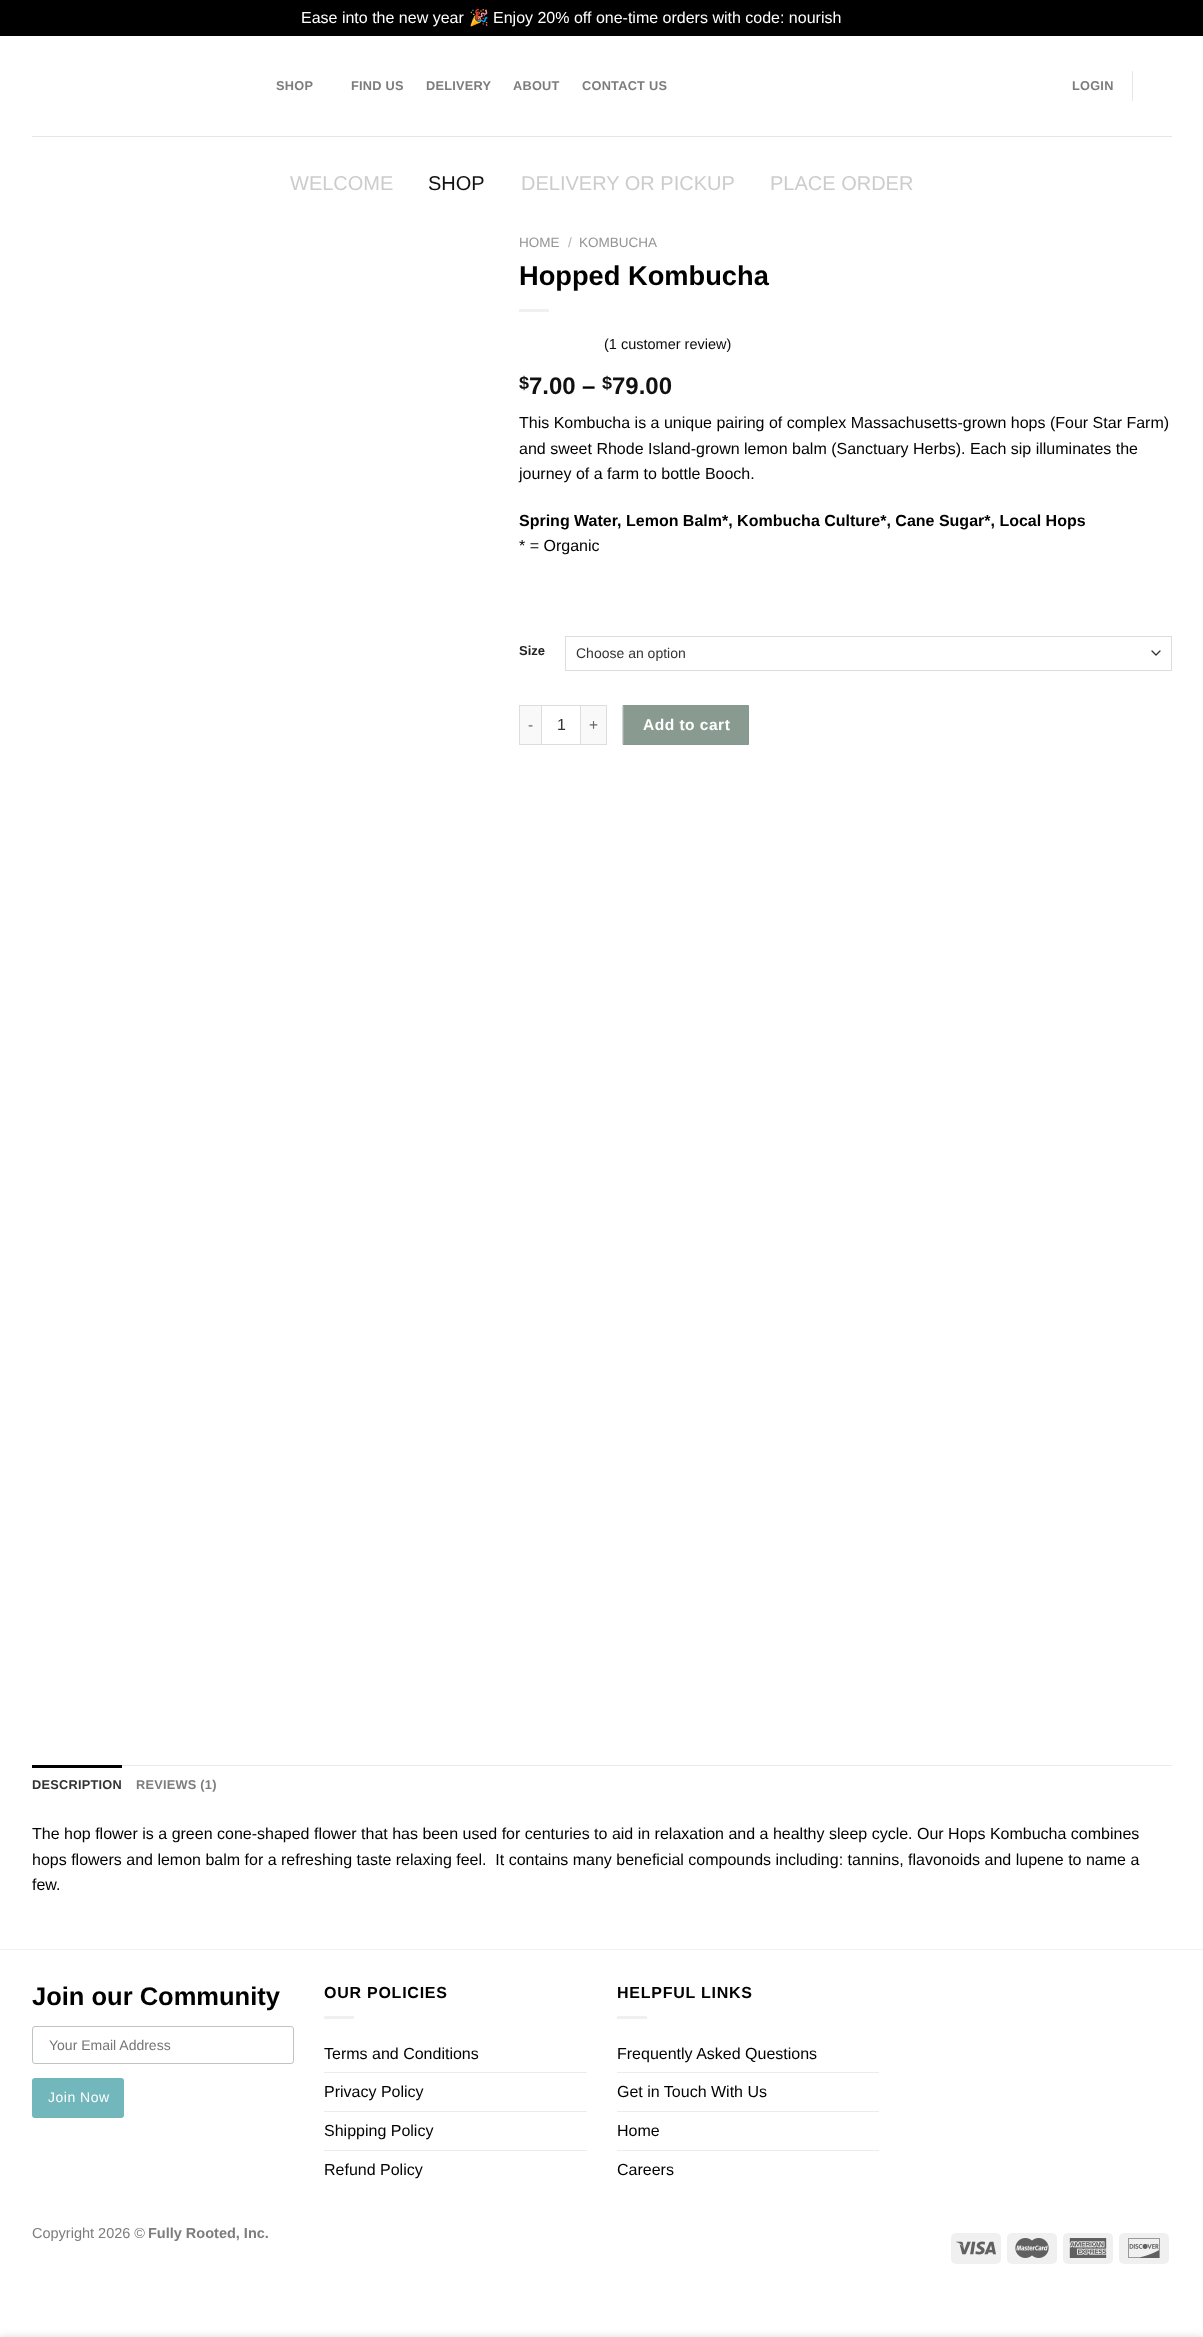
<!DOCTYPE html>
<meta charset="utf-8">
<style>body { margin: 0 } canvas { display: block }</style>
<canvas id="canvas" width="1203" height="2337"></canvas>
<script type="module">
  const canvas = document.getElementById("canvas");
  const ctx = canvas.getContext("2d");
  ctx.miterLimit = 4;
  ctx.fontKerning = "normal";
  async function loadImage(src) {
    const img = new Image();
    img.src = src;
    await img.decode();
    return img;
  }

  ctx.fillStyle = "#ffffff";
  ctx.fillRect(0, 0, 1203, 2337);
  ctx.fillStyle = "#000000";
  ctx.fillRect(0, 0, 1203, 36);
  ctx.font = "16px Liberation Sans";
  ctx.fillStyle = "#ffffff";
  ctx.fillText("Ease into the new year", 301, 23);
  ctx.font = "16px Noto Color Emoji";
  ctx.fillText("🎉", 469, 23);
  ctx.font = "16px Liberation Sans";
  ctx.fillText("Enjoy 20% off one-time orders with code: nourish", 493, 23);
  ctx.letterSpacing = "0.25px";
  ctx.font = "bold 12.75px Liberation Sans";
  ctx.fillStyle = "#7d7d7d";
  ctx.fillText("SHOP", 276, 90);
  ctx.fillText("FIND US", 351, 90);
  ctx.fillText("DELIVERY", 426, 90);
  ctx.fillText("ABOUT", 513, 90);
  ctx.fillText("CONTACT US", 582, 90);
  ctx.fillText("LOGIN", 1072, 90);
  ctx.fillStyle = "#e6e6e6";
  ctx.fillRect(1132, 71, 1, 30);
  ctx.fillRect(32, 136, 1140, 1);
  ctx.letterSpacing = "0px";
  ctx.font = "20px Liberation Sans";
  ctx.fillStyle = "#cccccc";
  ctx.fillText("WELCOME", 290, 190);
  ctx.fillStyle = "#111111";
  ctx.fillText("SHOP", 428, 190);
  ctx.fillStyle = "#cccccc";
  ctx.fillText("DELIVERY OR PICKUP", 521, 190);
  ctx.fillText("PLACE ORDER", 770, 190);
  ctx.font = "13.5px Liberation Sans";
  ctx.fillStyle = "#949494";
  ctx.fillText("HOME", 519, 247);
  ctx.fillStyle = "#b2b2b2";
  ctx.fillText("/", 568, 247);
  ctx.fillStyle = "#949494";
  ctx.fillText("KOMBUCHA", 579, 247);
  ctx.font = "bold 27.25px Liberation Sans";
  ctx.fillStyle = "#000000";
  ctx.fillText("Hopped Kombucha", 519, 285);
  ctx.fillStyle = "#f0f0f0";
  ctx.fillRect(519, 309, 30, 3);
  ctx.font = "14.5px Liberation Sans";
  ctx.fillStyle = "#0a0a0a";
  ctx.fillText("(1 customer review)", 604, 349);
  ctx.font = "bold 18px Liberation Sans";
  ctx.fillStyle = "#111111";
  ctx.fillText("$", 519, 389);
  ctx.font = "bold 24px Liberation Sans";
  ctx.fillText("7.00", 529, 394);
  ctx.fillStyle = "#000000";
  ctx.fillText("–", 582, 394);
  ctx.font = "bold 18px Liberation Sans";
  ctx.fillStyle = "#111111";
  ctx.fillText("$", 602, 389);
  ctx.font = "bold 24px Liberation Sans";
  ctx.fillText("79.00", 612, 394);
  ctx.font = "16px Liberation Sans";
  ctx.fillStyle = "#000000";
  ctx.fillText("This Kombucha is a unique pairing of complex Massachusetts-grown hops (Four Star Farm)", 519, 428);
  ctx.fillText("and sweet Rhode Island-grown lemon balm (Sanctuary Herbs). Each sip illuminates the", 519, 454);
  ctx.fillText("journey of a farm to bottle Booch.", 519, 479);
  ctx.font = "bold 16px Liberation Sans";
  ctx.fillText("Spring Water, Lemon Balm*, Kombucha Culture*, Cane Sugar*, Local Hops", 519, 526);
  ctx.font = "16px Liberation Sans";
  ctx.fillText("* = Organic", 519, 551);
  ctx.font = "bold 13px Liberation Sans";
  ctx.fillStyle = "#222222";
  ctx.fillText("Size", 519, 655);
  ctx.beginPath();
  ctx.moveTo(1152, 651);
  ctx.lineTo(1156, 655);
  ctx.lineTo(1160, 651);
  ctx.strokeStyle = "#333333";
  ctx.lineWidth = 1.3;
  ctx.lineCap = "round";
  ctx.lineJoin = "round";
  ctx.stroke();
  ctx.strokeStyle = "#dddddd";
  ctx.lineWidth = 1;
  ctx.lineJoin = "miter";
  ctx.strokeRect(565.5, 636.5, 606, 34);
  ctx.font = "14px Liberation Sans";
  ctx.fillStyle = "#333333";
  ctx.fillText("Choose an option", 576, 658);
  ctx.fillStyle = "#f9f9f9";
  ctx.fillRect(520, 706, 21, 38);
  ctx.fillStyle = "#dddddd";
  ctx.fillRect(519, 705, 22, 1);
  ctx.fillRect(519, 744, 22, 1);
  ctx.fillRect(519, 705, 1, 40);
  ctx.letterSpacing = "0.5px";
  ctx.font = "15.5px Liberation Sans";
  ctx.fillStyle = "#666666";
  ctx.fillText("-", 528, 730);
  ctx.strokeRect(541.5, 705.5, 39, 39);
  ctx.letterSpacing = "0px";
  ctx.font = "16px Liberation Sans";
  ctx.fillStyle = "#333333";
  ctx.fillText("1", 557, 730);
  ctx.fillStyle = "#f9f9f9";
  ctx.fillRect(581, 706, 25, 38);
  ctx.fillStyle = "#dddddd";
  ctx.fillRect(581, 705, 26, 1);
  ctx.fillRect(606, 705, 1, 40);
  ctx.fillRect(581, 744, 26, 1);
  ctx.letterSpacing = "0.5px";
  ctx.font = "15.5px Liberation Sans";
  ctx.fillStyle = "#666666";
  ctx.fillText("+", 589, 730);
  ctx.fillStyle = "#899b91";
  ctx.beginPath();
  ctx.rect(623.5, 705.5, 125, 39);
  ctx.fill();
  ctx.strokeStyle = "#87988f";
  ctx.stroke();
  ctx.font = "bold 15.5px Liberation Sans";
  ctx.fillStyle = "#ffffff";
  ctx.fillText("Add to cart", 643, 730);
  ctx.fillStyle = "#ececec";
  ctx.fillRect(122, 1765, 1050, 1);
  ctx.fillStyle = "#000000";
  ctx.fillRect(32, 1765, 90, 3);
  ctx.letterSpacing = "0.25px";
  ctx.font = "bold 12.75px Liberation Sans";
  ctx.fillStyle = "#333333";
  ctx.fillText("DESCRIPTION", 32, 1789);
  ctx.fillStyle = "#7d7d7d";
  ctx.fillText("REVIEWS (1)", 136, 1789);
  ctx.letterSpacing = "0px";
  ctx.font = "16px Liberation Sans";
  ctx.fillStyle = "#000000";
  ctx.fillText("The hop flower is a green cone-shaped flower that has been used for centuries to aid in relaxation and a healthy sleep cycle. Our Hops Kombucha combines", 32, 1839);
  ctx.fillText("hops flowers and lemon balm for a refreshing taste relaxing feel.  It contains many beneficial compounds including: tannins, flavonoids and lupene to name a", 32, 1865);
  ctx.fillText("few.", 32, 1890);
  ctx.fillStyle = "#f2f2f2";
  ctx.fillRect(0, 1949, 1203, 1);
  ctx.font = "bold 25.5px Liberation Sans";
  ctx.fillStyle = "#000000";
  ctx.fillText("Join our Community", 32, 2005);
  ctx.beginPath();
  ctx.roundRect(32.5, 2026.5, 261, 37, 2.5);
  ctx.strokeStyle = "#bec3c8";
  ctx.stroke();
  ctx.font = "14px Liberation Sans";
  ctx.fillStyle = "#757575";
  ctx.fillText("Your Email Address", 49, 2050);
  ctx.fillStyle = "#71b7bc";
  ctx.beginPath();
  ctx.roundRect(32, 2078, 92, 40, 3);
  ctx.fill();
  ctx.letterSpacing = "0.5px";
  ctx.fillStyle = "#ffffff";
  ctx.fillText("Join Now", 48, 2102);
  ctx.letterSpacing = "0.75px";
  ctx.font = "bold 16px Liberation Sans";
  ctx.fillStyle = "#000000";
  ctx.fillText("OUR POLICIES", 324, 1998);
  ctx.fillStyle = "#f0f0f0";
  ctx.fillRect(324, 2016, 30, 3);
  ctx.letterSpacing = "0px";
  ctx.font = "16px Liberation Sans";
  ctx.fillStyle = "#000000";
  ctx.fillText("Terms and Conditions", 324, 2059);
  ctx.fillStyle = "#ececec";
  ctx.fillRect(324, 2072, 263, 1);
  ctx.fillStyle = "#000000";
  ctx.fillText("Privacy Policy", 324, 2097);
  ctx.fillStyle = "#ececec";
  ctx.fillRect(324, 2111, 263, 1);
  ctx.fillStyle = "#000000";
  ctx.fillText("Shipping Policy", 324, 2136);
  ctx.fillStyle = "#ececec";
  ctx.fillRect(324, 2150, 263, 1);
  ctx.fillStyle = "#000000";
  ctx.fillText("Refund Policy", 324, 2175);
  ctx.letterSpacing = "0.75px";
  ctx.font = "bold 16px Liberation Sans";
  ctx.fillText("HELPFUL LINKS", 617, 1998);
  ctx.fillStyle = "#f0f0f0";
  ctx.fillRect(617, 2016, 30, 3);
  ctx.letterSpacing = "0px";
  ctx.font = "16px Liberation Sans";
  ctx.fillStyle = "#000000";
  ctx.fillText("Frequently Asked Questions", 617, 2059);
  ctx.fillStyle = "#ececec";
  ctx.fillRect(617, 2072, 262, 1);
  ctx.fillStyle = "#000000";
  ctx.fillText("Get in Touch With Us", 617, 2097);
  ctx.fillStyle = "#ececec";
  ctx.fillRect(617, 2111, 262, 1);
  ctx.fillStyle = "#000000";
  ctx.fillText("Home", 617, 2136);
  ctx.fillStyle = "#ececec";
  ctx.fillRect(617, 2150, 262, 1);
  ctx.fillStyle = "#000000";
  ctx.fillText("Careers", 617, 2175);
  ctx.font = "14.5px Liberation Sans";
  ctx.fillStyle = "#7d7d7d";
  ctx.fillText("Copyright 2026 ©", 32, 2238);
  ctx.font = "bold 14.5px Liberation Sans";
  ctx.fillText("Fully Rooted, Inc.", 148, 2238);
  ctx.fillStyle = "#f0f0f0";
  ctx.beginPath();
  ctx.roundRect(951, 2233, 50, 31, 5);
  ctx.fill();
  ctx.drawImage(await loadImage("img1.png"), 956, 2241, 40, 14);
  ctx.beginPath();
  ctx.roundRect(1007, 2233, 50, 31, 5);
  ctx.fill();
  ctx.drawImage(await loadImage("img2.png"), 1015, 2238, 34, 20);
  ctx.beginPath();
  ctx.roundRect(1063, 2233, 50, 31, 5);
  ctx.fill();
  ctx.drawImage(await loadImage("img3.png"), 1069, 2238, 38, 20);
  ctx.beginPath();
  ctx.roundRect(1119, 2233, 50, 31, 5);
  ctx.fill();
  ctx.drawImage(await loadImage("img4.png"), 1128, 2238, 32, 20);
  ctx.fillStyle = "rgba(0, 0, 0, 0.14)";
  ctx.filter = "blur(4.5px)";
  ctx.beginPath();
  ctx.rect(0, 2337, 1203, 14);
  ctx.fill();
  ctx.filter = "none";
</script>
